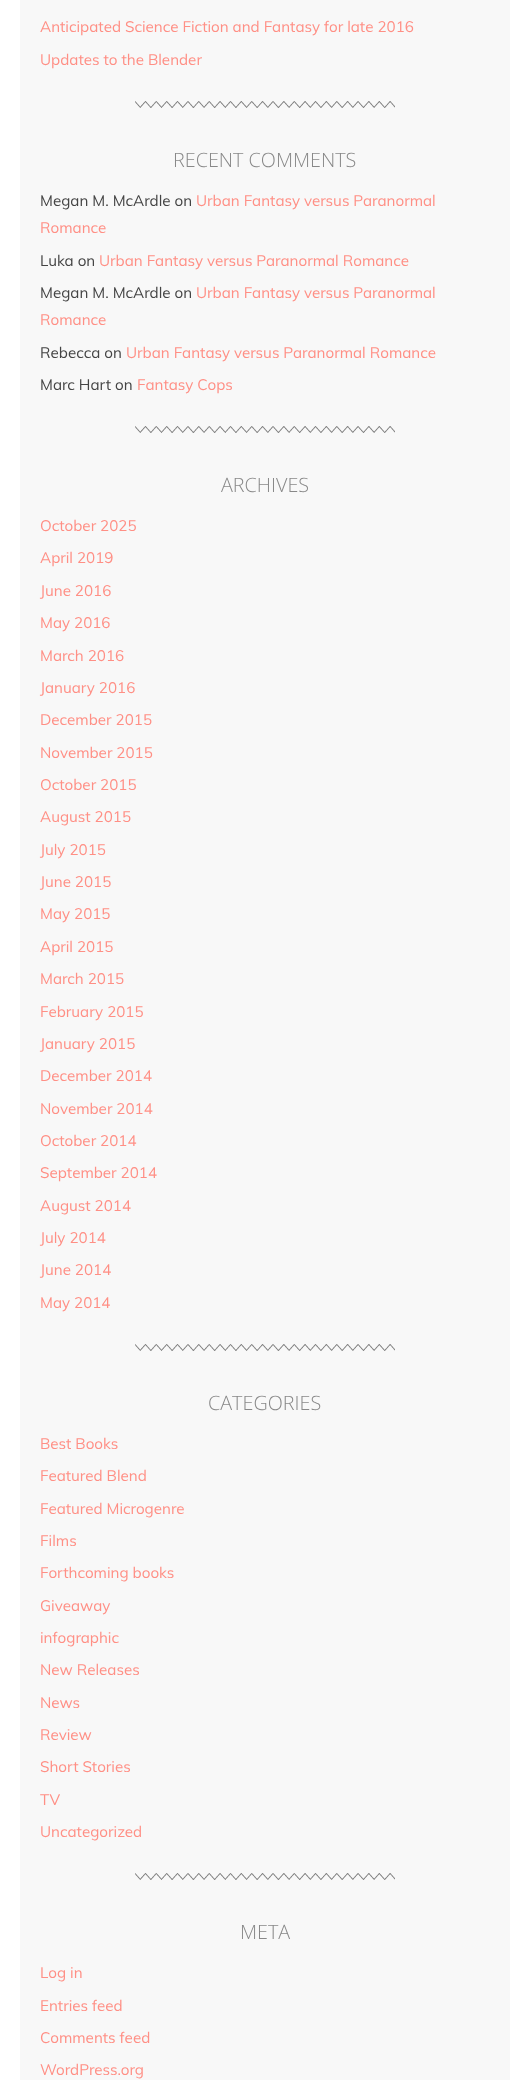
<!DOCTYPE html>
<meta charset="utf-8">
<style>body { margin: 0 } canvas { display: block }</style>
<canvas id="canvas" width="530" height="2080"></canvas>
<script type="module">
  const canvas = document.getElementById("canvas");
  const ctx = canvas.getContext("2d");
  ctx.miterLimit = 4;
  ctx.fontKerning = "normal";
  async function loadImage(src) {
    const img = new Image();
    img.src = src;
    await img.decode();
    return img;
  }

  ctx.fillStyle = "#ffffff";
  ctx.fillRect(0, 0, 530, 2080);
  ctx.fillStyle = "#f8f8f8";
  ctx.fillRect(20, 0, 490, 2080);
  ctx.drawImage(await loadImage("img1.png"), 135, 101, 260, 7);
  ctx.font = "15.2px Muli";
  ctx.fillStyle = "#ff8f85";
  ctx.fillText("Anticipated Science Fiction and Fantasy for late 2016", 40, 32);
  ctx.fillText("Updates to the Blender", 40, 65);
  ctx.drawImage(await loadImage("img1.png"), 135, 426, 260, 7);
  ctx.font = "300 19.75px Open Sans";
  ctx.fillStyle = "#888888";
  ctx.fillText("RECENT COMMENTS", 173, 167);
  ctx.font = "15.2px Muli";
  ctx.fillStyle = "#444444";
  ctx.fillText("Megan M. McArdle on", 40, 206);
  ctx.fillStyle = "#ff8f85";
  ctx.fillText("Urban Fantasy versus Paranormal", 196, 206);
  ctx.fillText("Romance", 40, 233);
  ctx.fillStyle = "#444444";
  ctx.fillText("Luka on", 40, 266);
  ctx.fillStyle = "#ff8f85";
  ctx.fillText("Urban Fantasy versus Paranormal Romance", 99, 266);
  ctx.fillStyle = "#444444";
  ctx.fillText("Megan M. McArdle on", 40, 298);
  ctx.fillStyle = "#ff8f85";
  ctx.fillText("Urban Fantasy versus Paranormal", 196, 298);
  ctx.fillText("Romance", 40, 325);
  ctx.fillStyle = "#444444";
  ctx.fillText("Rebecca on", 40, 358);
  ctx.fillStyle = "#ff8f85";
  ctx.fillText("Urban Fantasy versus Paranormal Romance", 126, 358);
  ctx.fillStyle = "#444444";
  ctx.fillText("Marc Hart on", 40, 390);
  ctx.fillStyle = "#ff8f85";
  ctx.fillText("Fantasy Cops", 137, 390);
  ctx.drawImage(await loadImage("img1.png"), 135, 1344, 260, 7);
  ctx.font = "300 19.75px Open Sans";
  ctx.fillStyle = "#888888";
  ctx.fillText("ARCHIVES", 221, 492);
  ctx.font = "15.2px Muli";
  ctx.fillStyle = "#ff8f85";
  ctx.fillText("October 2025", 40, 531);
  ctx.fillText("April 2019", 40, 563);
  ctx.fillText("June 2016", 40, 596);
  ctx.fillText("May 2016", 40, 628);
  ctx.fillText("March 2016", 40, 661);
  ctx.fillText("January 2016", 40, 693);
  ctx.fillText("December 2015", 40, 725);
  ctx.fillText("November 2015", 40, 758);
  ctx.fillText("October 2015", 40, 790);
  ctx.fillText("August 2015", 40, 822);
  ctx.fillText("July 2015", 40, 855);
  ctx.fillText("June 2015", 40, 887);
  ctx.fillText("May 2015", 40, 919);
  ctx.fillText("April 2015", 40, 952);
  ctx.fillText("March 2015", 40, 984);
  ctx.fillText("February 2015", 40, 1017);
  ctx.fillText("January 2015", 40, 1049);
  ctx.fillText("December 2014", 40, 1081);
  ctx.fillText("November 2014", 40, 1114);
  ctx.fillText("October 2014", 40, 1146);
  ctx.fillText("September 2014", 40, 1178);
  ctx.fillText("August 2014", 40, 1211);
  ctx.fillText("July 2014", 40, 1243);
  ctx.fillText("June 2014", 40, 1275);
  ctx.fillText("May 2014", 40, 1308);
  ctx.drawImage(await loadImage("img1.png"), 135, 1873, 260, 7);
  ctx.font = "300 19.75px Open Sans";
  ctx.fillStyle = "#888888";
  ctx.fillText("CATEGORIES", 208, 1410);
  ctx.font = "15.2px Muli";
  ctx.fillStyle = "#ff8f85";
  ctx.fillText("Best Books", 40, 1449);
  ctx.fillText("Featured Blend", 40, 1481);
  ctx.fillText("Featured Microgenre", 40, 1514);
  ctx.fillText("Films", 40, 1546);
  ctx.fillText("Forthcoming books", 40, 1578);
  ctx.fillText("Giveaway", 40, 1611);
  ctx.fillText("infographic", 40, 1643);
  ctx.fillText("New Releases", 40, 1675);
  ctx.fillText("News", 40, 1708);
  ctx.fillText("Review", 40, 1740);
  ctx.fillText("Short Stories", 40, 1772);
  ctx.fillText("TV", 40, 1805);
  ctx.fillText("Uncategorized", 40, 1837);
  ctx.font = "300 19.75px Open Sans";
  ctx.fillStyle = "#888888";
  ctx.fillText("META", 240, 1939);
  ctx.font = "15.2px Muli";
  ctx.fillStyle = "#ff8f85";
  ctx.fillText("Log in", 40, 1978);
  ctx.fillText("Entries feed", 40, 2011);
  ctx.fillText("Comments feed", 40, 2043);
  ctx.fillText("WordPress.org", 40, 2075);
</script>
